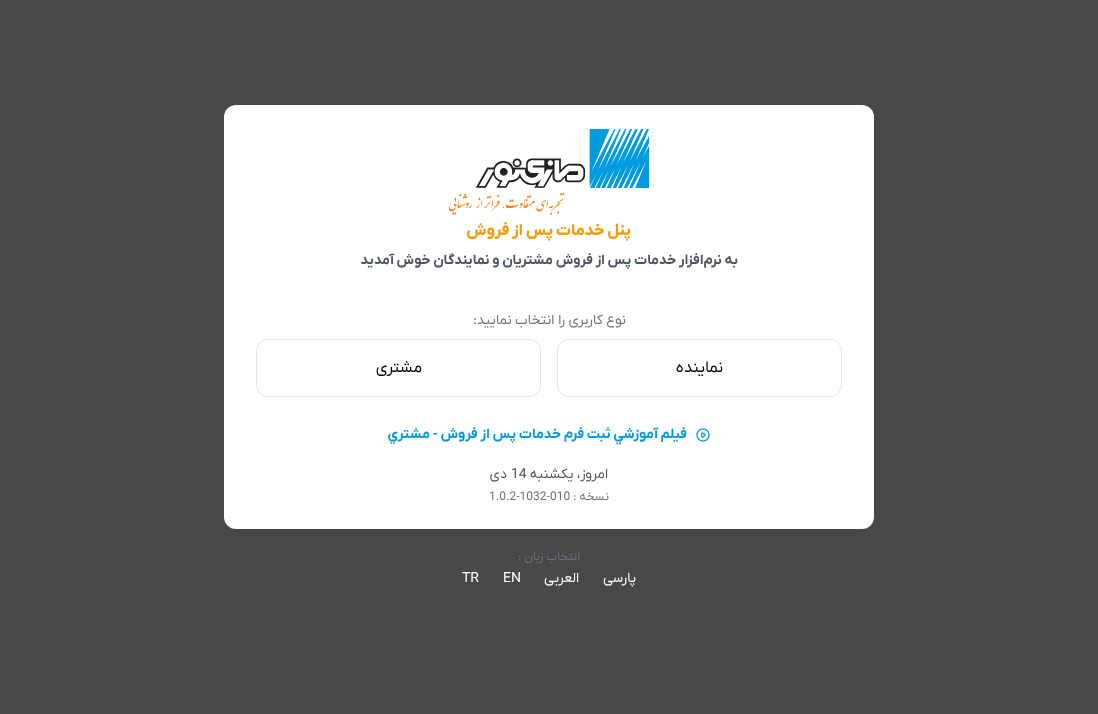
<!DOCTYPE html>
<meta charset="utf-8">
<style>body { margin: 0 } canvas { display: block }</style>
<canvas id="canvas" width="1098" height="714"></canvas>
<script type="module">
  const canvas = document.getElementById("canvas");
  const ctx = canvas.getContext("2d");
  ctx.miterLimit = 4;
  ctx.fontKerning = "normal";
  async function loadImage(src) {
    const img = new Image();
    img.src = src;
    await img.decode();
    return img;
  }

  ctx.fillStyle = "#484849";
  ctx.fillRect(0, 0, 1098, 714);
  ctx.fillStyle = "#ffffff";
  ctx.beginPath();
  ctx.roundRect(224, 105, 650, 424, 12);
  ctx.fill();
  ctx.drawImage(await loadImage("img1.png"), 449, 129, 200, 86);
  ctx.direction = "rtl";
  ctx.font = "800 16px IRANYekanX";
  ctx.fillStyle = "#f59e0b";
  ctx.fillText("پنل خدمات پس از فروش", 631, 235);
  ctx.font = "bold 14px IRANYekanX";
  ctx.fillStyle = "#4b5563";
  ctx.fillText("به نرم‌افزار خدمات پس از فروش مشتریان و نمایندگان خوش آمدید", 738, 264);
  ctx.font = "14px IRANYekanX";
  ctx.fillStyle = "#6b7280";
  ctx.fillText("نوع کاربری را انتخاب نمایید:", 626, 324);
  ctx.beginPath();
  ctx.roundRect(557.5, 339.5, 284, 57, 11.5);
  ctx.strokeStyle = "#e5e7eb";
  ctx.stroke();
  ctx.font = "16px IRANYekanX";
  ctx.fillStyle = "#000000";
  ctx.fillText("نماینده", 723, 372);
  ctx.beginPath();
  ctx.roundRect(256.5, 339.5, 284, 57, 11.5);
  ctx.stroke();
  ctx.fillText("مشتری", 422, 372);
  ctx.drawImage(await loadImage("img2.png"), 696, 428, 14, 14);
  ctx.font = "bold 14px IRANYekanX";
  ctx.fillStyle = "#009bdf";
  ctx.fillText("فيلم آموزشي ثبت فرم خدمات پس از فروش - مشتري", 687, 438);
  ctx.font = "14px IRANYekanX";
  ctx.fillStyle = "#4b5563";
  ctx.fillText("امروز، یکشنبه", 608, 478);
  ctx.direction = "ltr";
  ctx.fillText("14", 511, 478);
  ctx.direction = "rtl";
  ctx.fillText("دی", 507, 478);
  ctx.font = "12px IRANYekanX";
  ctx.fillStyle = "#6b7280";
  ctx.fillText("نسخه :", 609, 500);
  ctx.direction = "ltr";
  ctx.fillText("1.0.2-1032-010", 489, 500);
  ctx.direction = "rtl";
  ctx.fillText("انتخاب زبان :", 580, 560);
  ctx.font = "14px IRANYekanX";
  ctx.fillStyle = "#ffffff";
  ctx.fillText("پارسی", 636, 582);
  ctx.fillText("العربی", 579, 582);
  ctx.direction = "ltr";
  ctx.fillText("EN", 503, 582);
  ctx.fillText("TR", 462, 582);
</script>
